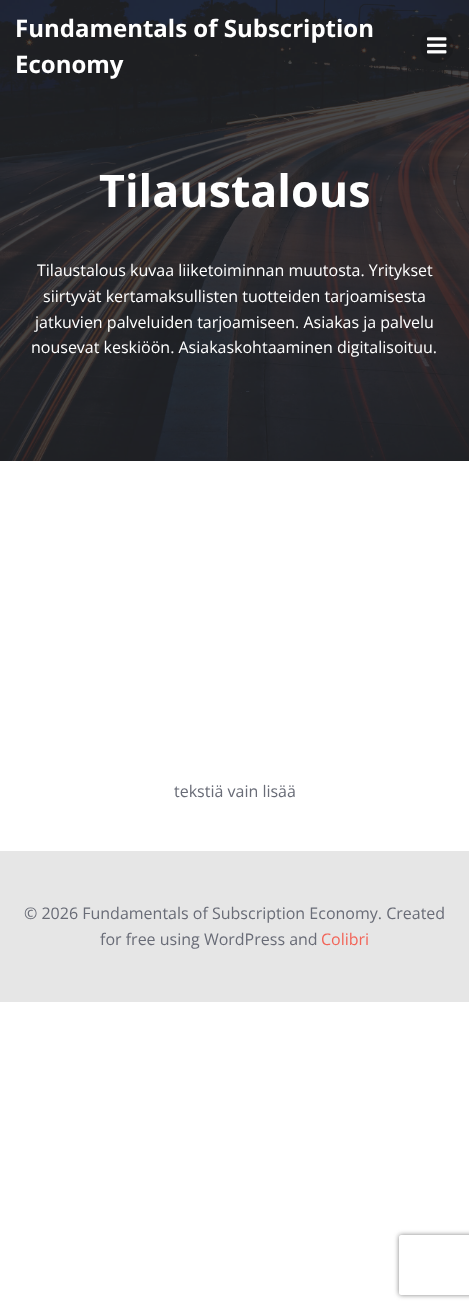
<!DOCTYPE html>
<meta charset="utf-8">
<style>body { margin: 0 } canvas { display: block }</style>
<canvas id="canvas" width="469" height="1309"></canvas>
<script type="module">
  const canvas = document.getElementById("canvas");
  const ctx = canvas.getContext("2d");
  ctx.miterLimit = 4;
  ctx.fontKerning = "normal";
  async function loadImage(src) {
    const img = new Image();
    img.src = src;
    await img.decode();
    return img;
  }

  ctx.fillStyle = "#ffffff";
  ctx.fillRect(0, 0, 469, 1309);
  ctx.drawImage(await loadImage("img2.png"), 0, 0, 469, 461);
  ctx.font = "bold 24px Open Sans";
  ctx.fillText("Fundamentals of Subscription", 15, 37);
  ctx.fillText("Economy", 15, 73);
  ctx.fillStyle = "rgba(0, 0, 0, 0.1)";
  ctx.beginPath();
  ctx.arc(437, 46, 17, 0, Math.PI * 2);
  ctx.fill();
  ctx.drawImage(await loadImage("img1.png"), 427, 37, 20, 17);
  ctx.font = "bold 44.75px Open Sans";
  ctx.fillStyle = "#ffffff";
  ctx.fillText("Tilaustalous", 99, 207);
  ctx.font = "16px Open Sans";
  ctx.fillText("Tilaustalous kuvaa liiketoiminnan muutosta. Yritykset", 37, 276);
  ctx.fillText("siirtyvät kertamaksullisten tuotteiden tarjoamisesta", 43, 302);
  ctx.fillText("jatkuvien palveluiden tarjoamiseen. Asiakas ja palvelu", 35, 328);
  ctx.fillText("nousevat keskiöön. Asiakaskohtaaminen digitalisoituu.", 31, 353);
  ctx.fillStyle = "#696c77";
  ctx.fillText("tekstiä vain lisää", 174, 797);
  ctx.fillStyle = "#e6e6e6";
  ctx.fillRect(0, 851, 469, 151);
  ctx.fillStyle = "#696c77";
  ctx.fillText("© 2026 Fundamentals of Subscription Economy. Created", 24, 919);
  ctx.fillText("for free using WordPress and", 100, 945);
  ctx.fillStyle = "#f26559";
  ctx.fillText("Colibri", 321, 945);
  ctx.save();
  ctx.beginPath();
  ctx.moveTo(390, 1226);
  ctx.lineTo(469, 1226);
  ctx.lineTo(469, 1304);
  ctx.lineTo(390, 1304);
  ctx.closePath();
  ctx.moveTo(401, 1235);
  ctx.lineTo(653, 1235);
  ctx.bezierCurveTo(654, 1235, 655, 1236, 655, 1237);
  ctx.lineTo(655, 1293);
  ctx.bezierCurveTo(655, 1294, 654, 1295, 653, 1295);
  ctx.lineTo(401, 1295);
  ctx.bezierCurveTo(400, 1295, 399, 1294, 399, 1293);
  ctx.lineTo(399, 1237);
  ctx.bezierCurveTo(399, 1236, 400, 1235, 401, 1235);
  ctx.closePath();
  ctx.clip("evenodd");
  ctx.fillStyle = "#808080";
  ctx.filter = "blur(2.5px)";
  ctx.beginPath();
  ctx.roundRect(399, 1235, 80, 60, 2);
  ctx.fill();
  ctx.filter = "none";
  ctx.restore();
</script>
